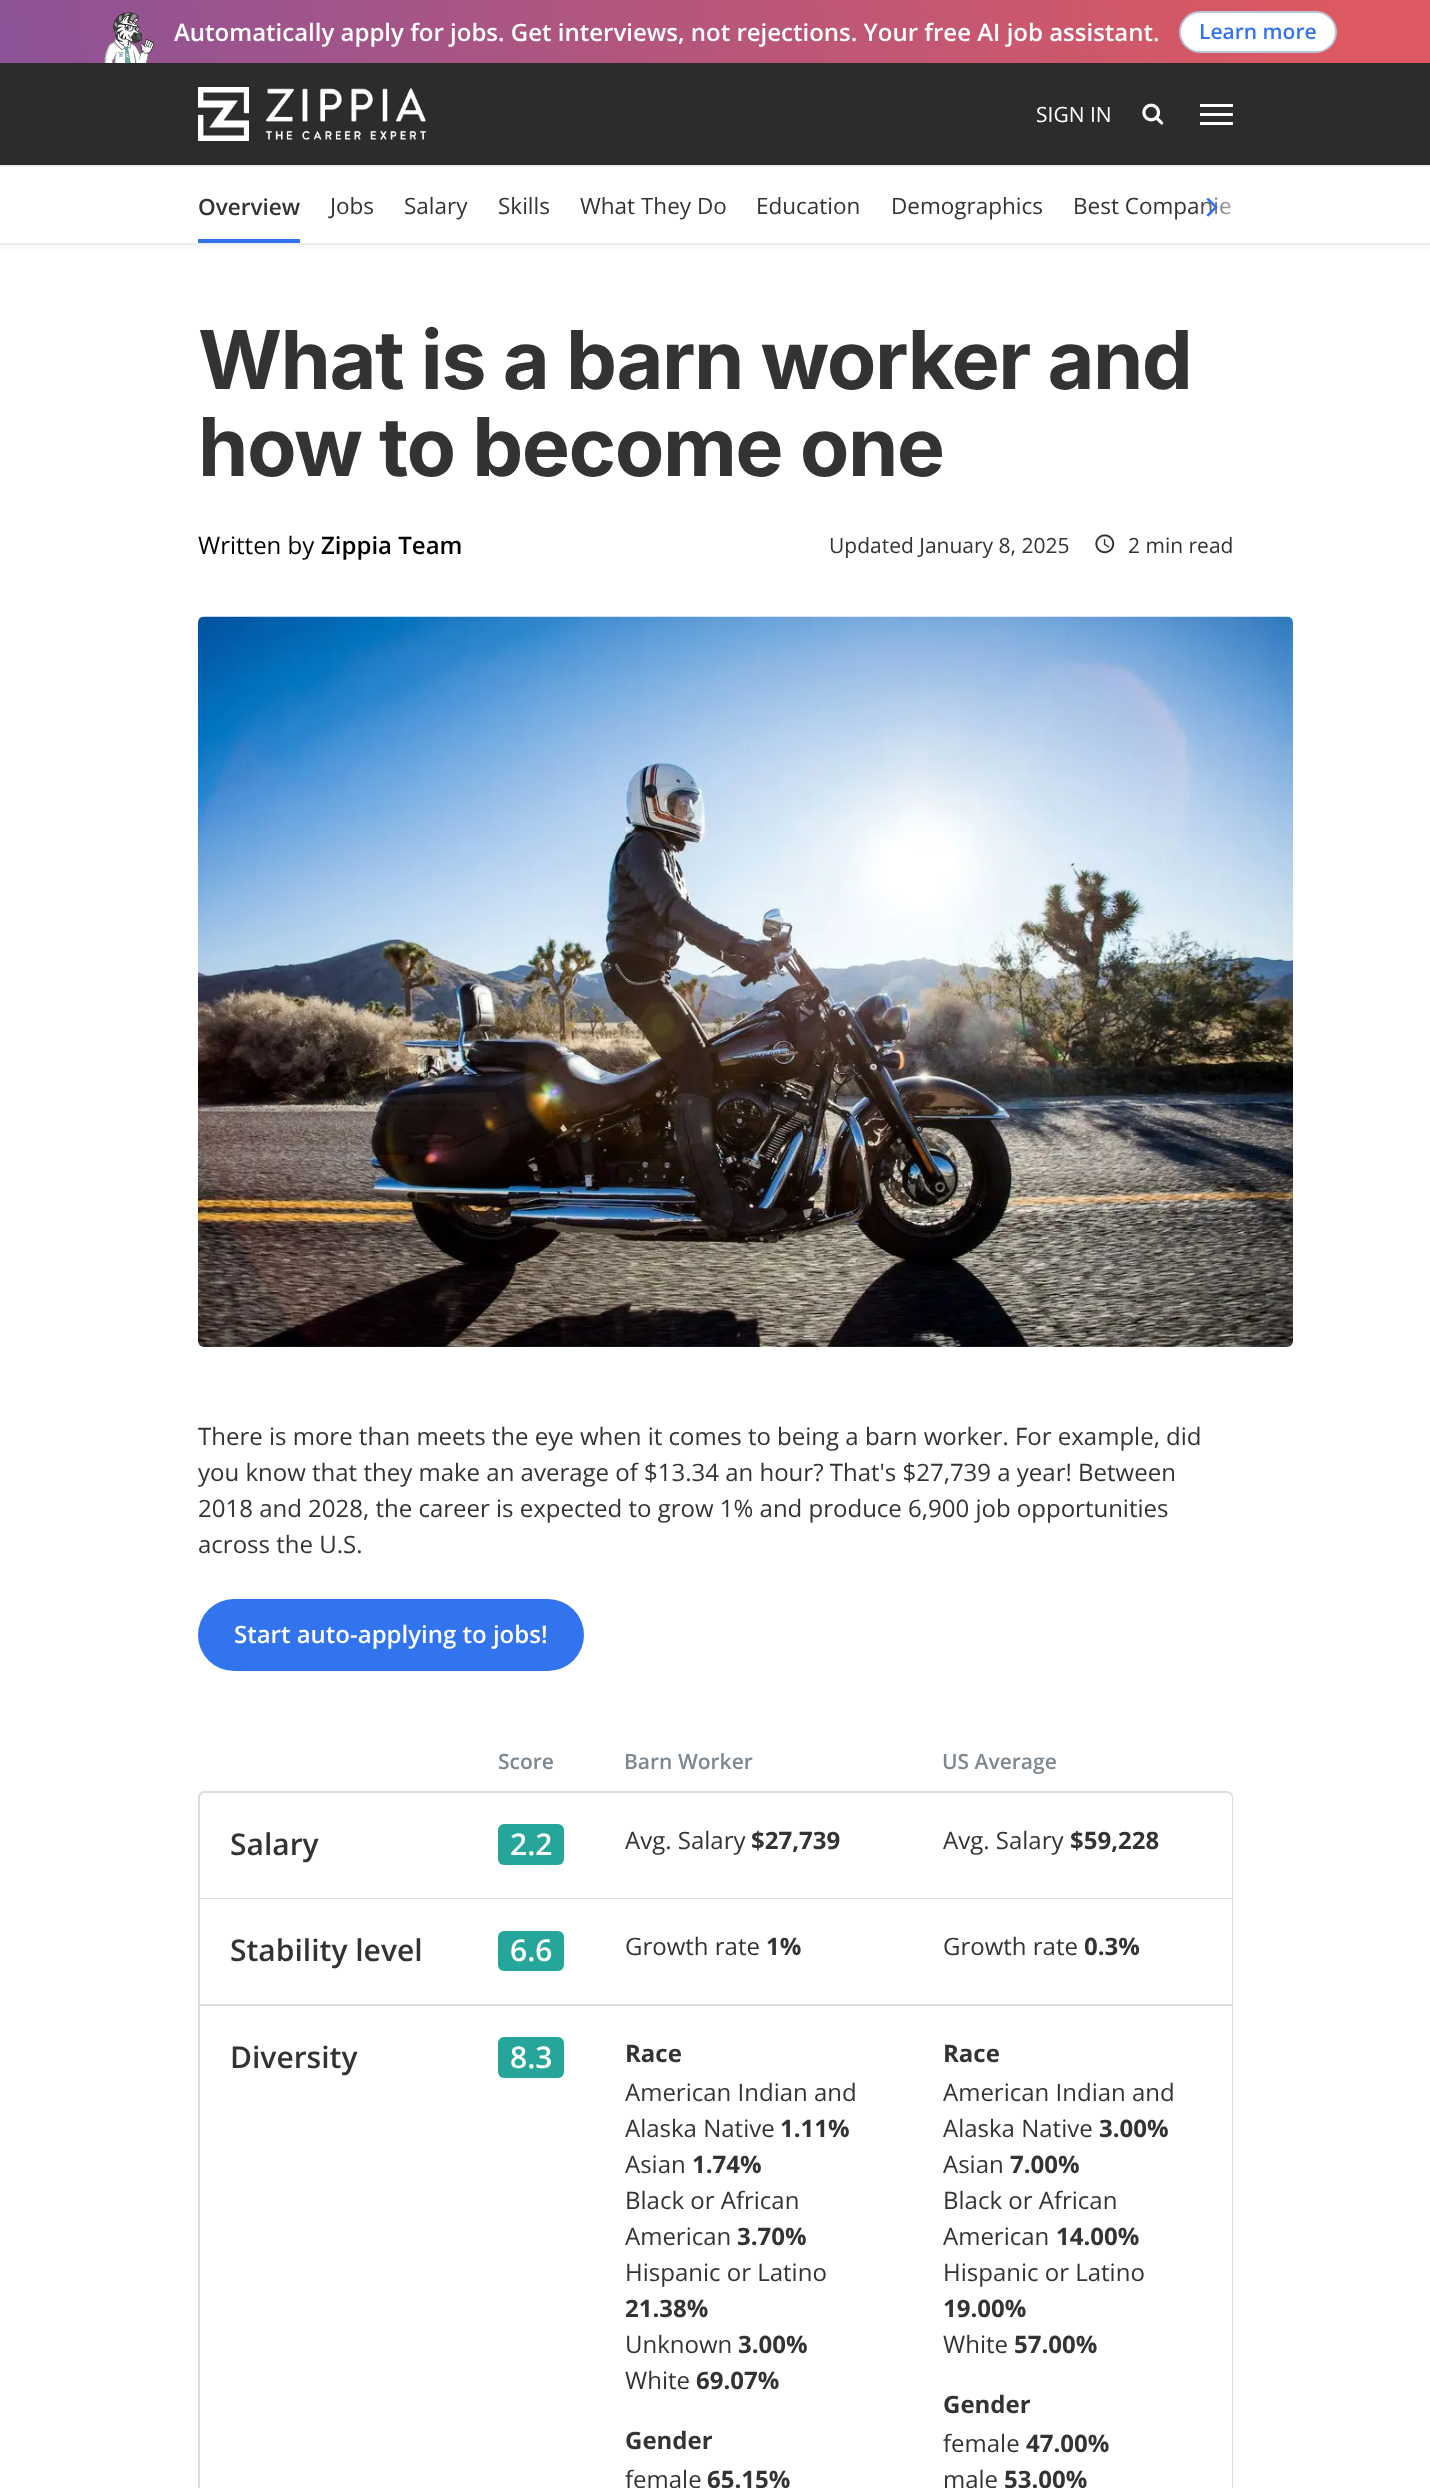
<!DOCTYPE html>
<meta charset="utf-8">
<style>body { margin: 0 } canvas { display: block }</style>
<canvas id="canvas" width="1430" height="2488"></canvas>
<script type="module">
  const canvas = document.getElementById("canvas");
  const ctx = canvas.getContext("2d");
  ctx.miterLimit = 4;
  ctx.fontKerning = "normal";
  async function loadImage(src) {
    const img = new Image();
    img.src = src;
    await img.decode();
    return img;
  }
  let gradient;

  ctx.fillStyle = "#ffffff";
  ctx.fillRect(0, 0, 1430, 2488);
  gradient = ctx.createLinearGradient(-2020, 533, 1413, -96);
  gradient.addColorStop(0, "#1048ee");
  gradient.addColorStop(0.97, "#dc5961");
  ctx.fillStyle = gradient;
  ctx.fillRect(0, 0, 1430, 63);
  ctx.drawImage(await loadImage("img1.png"), 104, 12, 51, 51);
  ctx.font = "600 24px Open Sans";
  ctx.fillStyle = "#ffffff";
  ctx.fillText("Automatically apply for jobs. Get interviews, not rejections. Your free AI job assistant.", 174, 41);
  ctx.beginPath();
  ctx.roundRect(1180, 12, 156, 40, 20);
  ctx.fill();
  ctx.strokeStyle = "#bac4da";
  ctx.lineWidth = 2;
  ctx.stroke();
  ctx.font = "600 21px Open Sans";
  ctx.fillStyle = "#3174ee";
  ctx.fillText("Learn more", 1199, 39);
  ctx.fillStyle = "rgba(0, 0, 0, 0.04)";
  ctx.filter = "blur(3px)";
  ctx.beginPath();
  ctx.rect(0, 170, 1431, 78);
  ctx.fill();
  ctx.filter = "none";
  ctx.fillStyle = "#ededed";
  ctx.fillRect(0, 165, 1430, 2);
  ctx.fillStyle = "#2c2c2c";
  ctx.fillRect(0, 63, 1430, 102);
  ctx.drawImage(await loadImage("img2.png"), 198, 87, 228, 54);
  ctx.font = "21px Open Sans";
  ctx.fillStyle = "#ffffff";
  ctx.fillText("SIGN IN", 1036, 122);
  ctx.drawImage(await loadImage("img3.png"), 1142, 103, 22, 22);
  ctx.fillRect(1200, 104, 33, 3);
  ctx.fillRect(1200, 113, 33, 3);
  ctx.fillRect(1200, 122, 33, 3);
  ctx.fillRect(0, 168, 1430, 75);
  ctx.fillStyle = "#ededed";
  ctx.fillRect(0, 243, 1430, 2);
  ctx.font = "22.5px Open Sans";
  ctx.fillStyle = "#333333";
  ctx.fillText("Jobs", 330, 214);
  ctx.fillText("Salary", 404, 214);
  ctx.fillText("Skills", 498, 214);
  ctx.fillText("What They Do", 580, 214);
  ctx.fillText("Education", 756, 214);
  ctx.fillText("Demographics", 891, 214);
  ctx.fillText("Best Companie", 1073, 214);
  ctx.fillStyle = "#3174ee";
  ctx.fillRect(198, 239, 102, 4);
  ctx.font = "600 22.5px Open Sans";
  ctx.fillStyle = "#333333";
  ctx.fillText("Overview", 198, 215);
  gradient = ctx.createLinearGradient(1196, 207, 1256, 207);
  gradient.addColorStop(0, "rgba(255, 255, 255, 0)");
  gradient.addColorStop(1, "#ffffff");
  ctx.fillStyle = gradient;
  ctx.fillRect(1201, 197, 30, 18);
  ctx.drawImage(await loadImage("img4.png"), 1206, 197, 12, 20);
  ctx.letterSpacing = "-1.5px";
  ctx.font = "bold 81px Inter";
  ctx.fillStyle = "#333333";
  ctx.fillText("What is a barn worker and", 198, 389);
  ctx.fillText("how to become one", 198, 476);
  ctx.letterSpacing = "0px";
  ctx.font = "24px Open Sans";
  ctx.fillStyle = "#000000";
  ctx.fillText("Written by", 198, 554);
  ctx.font = "600 24px Open Sans";
  ctx.fillText("Zippia Team", 321, 554);
  ctx.font = "21px Open Sans";
  ctx.fillStyle = "#333333";
  ctx.fillText("Updated January 8, 2025", 829, 553);
  ctx.drawImage(await loadImage("img5.png"), 1095, 534, 20, 20);
  ctx.fillText("2 min read", 1128, 553);
  ctx.drawImage(await loadImage("img6.png"), 198, 616, 1095, 731);
  ctx.font = "24px Open Sans";
  ctx.fillText("There is more than meets the eye when it comes to being a barn worker. For example, did", 198, 1445);
  ctx.fillText("you know that they make an average of $13.34 an hour? That's $27,739 a year! Between", 198, 1481);
  ctx.fillText("2018 and 2028, the career is expected to grow 1% and produce 6,900 job opportunities", 198, 1517);
  ctx.fillText("across the U.S.", 198, 1553);
  ctx.fillStyle = "#3174ee";
  ctx.beginPath();
  ctx.roundRect(198, 1599, 386, 72, 36);
  ctx.fill();
  ctx.font = "600 24px Open Sans";
  ctx.fillStyle = "#ffffff";
  ctx.fillText("Start auto-applying to jobs!", 234, 1643);
  ctx.font = "600 21px Open Sans";
  ctx.fillStyle = "#7d878f";
  ctx.fillText("Score", 498, 1769);
  ctx.fillText("Barn Worker", 624, 1769);
  ctx.fillText("US Average", 942, 1769);
  ctx.fillStyle = "#d8dee2";
  ctx.beginPath();
  ctx.roundRect(199, 1792, 1033, 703, 5);
  ctx.fill();
  ctx.strokeStyle = "#d8dee2";
  ctx.stroke();
  ctx.fillStyle = "#ffffff";
  ctx.beginPath();
  ctx.roundRect(200, 1793, 268, 105, [5, 0, 0, 0]);
  ctx.fill();
  ctx.font = "600 30px Open Sans";
  ctx.fillStyle = "#333333";
  ctx.fillText("Salary", 230, 1855);
  ctx.fillStyle = "#ffffff";
  ctx.fillRect(468, 1793, 446, 105);
  ctx.fillStyle = "#26a69a";
  ctx.beginPath();
  ctx.roundRect(498, 1824, 66, 41, 6);
  ctx.fill();
  ctx.fillStyle = "#ffffff";
  ctx.fillText("2.2", 510, 1855);
  ctx.font = "24px Open Sans";
  ctx.fillStyle = "#333333";
  ctx.fillText("Avg. Salary", 625, 1849);
  ctx.font = "bold 24px Open Sans";
  ctx.fillText("$27,739", 751, 1849);
  ctx.fillStyle = "#ffffff";
  ctx.beginPath();
  ctx.roundRect(914, 1793, 318, 105, [0, 5, 0, 0]);
  ctx.fill();
  ctx.font = "24px Open Sans";
  ctx.fillStyle = "#333333";
  ctx.fillText("Avg. Salary", 943, 1849);
  ctx.font = "bold 24px Open Sans";
  ctx.fillText("$59,228", 1070, 1849);
  ctx.fillStyle = "#ffffff";
  ctx.fillRect(200, 1899, 1032, 105);
  ctx.font = "600 30px Open Sans";
  ctx.fillStyle = "#333333";
  ctx.fillText("Stability level", 230, 1961);
  ctx.fillStyle = "#26a69a";
  ctx.beginPath();
  ctx.roundRect(498, 1931, 66, 40, 6);
  ctx.fill();
  ctx.fillStyle = "#ffffff";
  ctx.fillText("6.6", 510, 1961);
  ctx.font = "24px Open Sans";
  ctx.fillStyle = "#333333";
  ctx.fillText("Growth rate", 625, 1955);
  ctx.font = "bold 24px Open Sans";
  ctx.fillText("1%", 766, 1955);
  ctx.font = "24px Open Sans";
  ctx.fillText("Growth rate", 943, 1955);
  ctx.font = "bold 24px Open Sans";
  ctx.fillText("0.3%", 1084, 1955);
  ctx.fillStyle = "#ffffff";
  ctx.fillRect(200, 2006, 1032, 482);
  ctx.font = "600 30px Open Sans";
  ctx.fillStyle = "#333333";
  ctx.fillText("Diversity", 230, 2068);
  ctx.fillStyle = "#26a69a";
  ctx.beginPath();
  ctx.roundRect(498, 2037, 66, 41, 6);
  ctx.fill();
  ctx.fillStyle = "#ffffff";
  ctx.fillText("8.3", 510, 2068);
  ctx.font = "bold 24px Open Sans";
  ctx.fillStyle = "#333333";
  ctx.fillText("Race", 625, 2062);
  ctx.font = "24px Open Sans";
  ctx.fillText("American Indian and", 625, 2101);
  ctx.fillText("Alaska Native", 625, 2137);
  ctx.font = "bold 24px Open Sans";
  ctx.fillText("1.11%", 780, 2137);
  ctx.font = "24px Open Sans";
  ctx.fillText("Asian", 625, 2173);
  ctx.font = "bold 24px Open Sans";
  ctx.fillText("1.74%", 692, 2173);
  ctx.font = "24px Open Sans";
  ctx.fillText("Black or African", 625, 2209);
  ctx.fillText("American", 625, 2245);
  ctx.font = "bold 24px Open Sans";
  ctx.fillText("3.70%", 737, 2245);
  ctx.font = "24px Open Sans";
  ctx.fillText("Hispanic or Latino", 625, 2281);
  ctx.font = "bold 24px Open Sans";
  ctx.fillText("21.38%", 625, 2317);
  ctx.font = "24px Open Sans";
  ctx.fillText("Unknown", 625, 2353);
  ctx.font = "bold 24px Open Sans";
  ctx.fillText("3.00%", 738, 2353);
  ctx.font = "24px Open Sans";
  ctx.fillText("White", 625, 2389);
  ctx.font = "bold 24px Open Sans";
  ctx.fillText("69.07%", 696, 2389);
  ctx.fillText("Gender", 625, 2449);
  ctx.font = "24px Open Sans";
  ctx.fillText("female", 625, 2488);
  ctx.font = "bold 24px Open Sans";
  ctx.fillText("65.15%", 707, 2488);
  ctx.fillText("Race", 943, 2062);
  ctx.font = "24px Open Sans";
  ctx.fillText("American Indian and", 943, 2101);
  ctx.fillText("Alaska Native", 943, 2137);
  ctx.font = "bold 24px Open Sans";
  ctx.fillText("3.00%", 1099, 2137);
  ctx.font = "24px Open Sans";
  ctx.fillText("Asian", 943, 2173);
  ctx.font = "bold 24px Open Sans";
  ctx.fillText("7.00%", 1010, 2173);
  ctx.font = "24px Open Sans";
  ctx.fillText("Black or African", 943, 2209);
  ctx.fillText("American", 943, 2245);
  ctx.font = "bold 24px Open Sans";
  ctx.fillText("14.00%", 1056, 2245);
  ctx.font = "24px Open Sans";
  ctx.fillText("Hispanic or Latino", 943, 2281);
  ctx.font = "bold 24px Open Sans";
  ctx.fillText("19.00%", 943, 2317);
  ctx.font = "24px Open Sans";
  ctx.fillText("White", 943, 2353);
  ctx.font = "bold 24px Open Sans";
  ctx.fillText("57.00%", 1014, 2353);
  ctx.fillText("Gender", 943, 2413);
  ctx.font = "24px Open Sans";
  ctx.fillText("female", 943, 2452);
  ctx.font = "bold 24px Open Sans";
  ctx.fillText("47.00%", 1026, 2452);
  ctx.font = "24px Open Sans";
  ctx.fillText("male", 943, 2488);
  ctx.font = "bold 24px Open Sans";
  ctx.fillText("53.00%", 1004, 2488);
</script>
